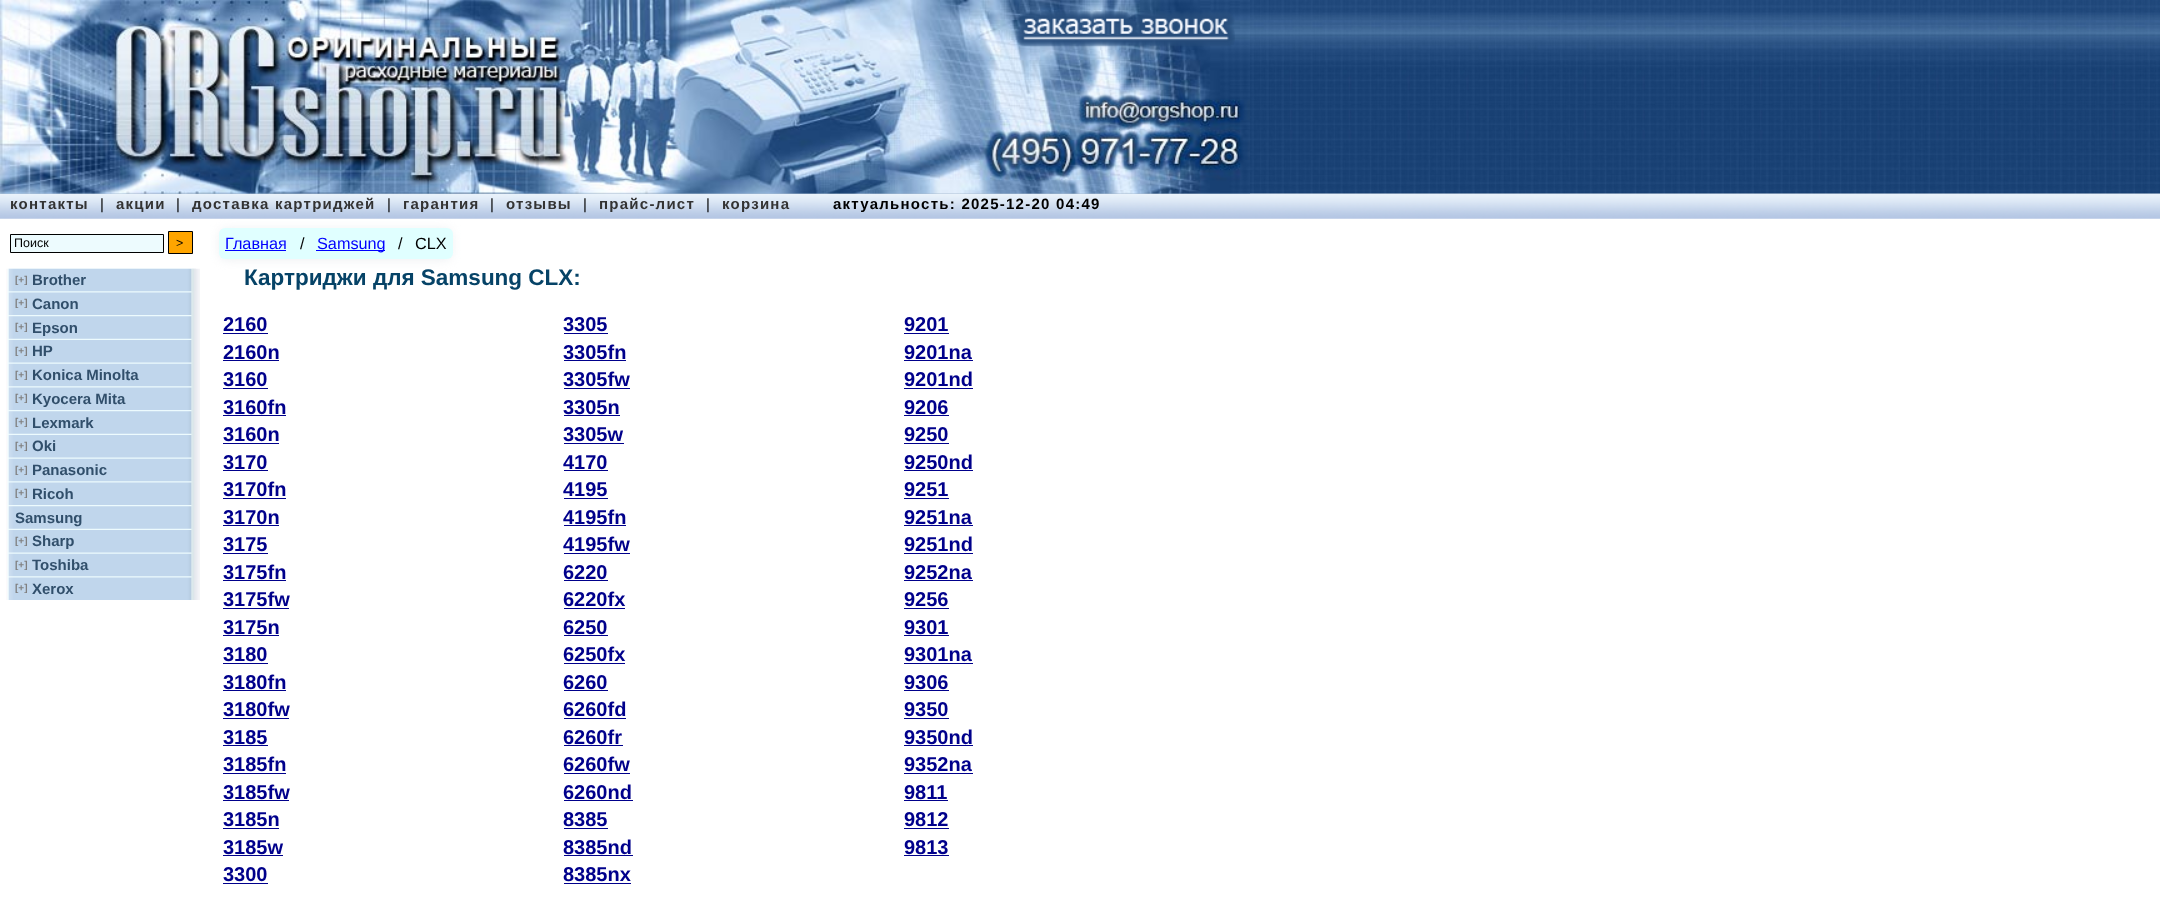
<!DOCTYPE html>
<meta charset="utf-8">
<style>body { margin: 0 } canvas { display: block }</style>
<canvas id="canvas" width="2160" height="913"></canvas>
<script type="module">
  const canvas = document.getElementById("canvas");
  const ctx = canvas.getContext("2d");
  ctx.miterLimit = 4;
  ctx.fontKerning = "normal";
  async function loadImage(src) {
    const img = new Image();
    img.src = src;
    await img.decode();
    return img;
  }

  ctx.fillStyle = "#ffffff";
  ctx.fillRect(0, 0, 2160, 913);
  ctx.drawImage(await loadImage("img1.png"), 0, 0, 2160, 194);
  ctx.drawImage(await loadImage("img2.png"), 0, 0, 1250, 194);
  ctx.drawImage(await loadImage("img3.png"), 1016, 11, 219, 36);
  ctx.drawImage(await loadImage("img4.png"), 0, 193, 2160, 26);
  ctx.letterSpacing = "1.25px";
  ctx.font = "bold 15px Liberation Sans";
  ctx.fillStyle = "#333333";
  ctx.fillText("контакты", 10, 209);
  ctx.font = "15px Liberation Sans";
  ctx.fillStyle = "#000000";
  ctx.fillText("|", 100, 209);
  ctx.font = "bold 15px Liberation Sans";
  ctx.fillStyle = "#333333";
  ctx.fillText("акции", 116, 209);
  ctx.font = "15px Liberation Sans";
  ctx.fillStyle = "#000000";
  ctx.fillText("|", 176, 209);
  ctx.font = "bold 15px Liberation Sans";
  ctx.fillStyle = "#333333";
  ctx.fillText("доставка картриджей", 192, 209);
  ctx.font = "15px Liberation Sans";
  ctx.fillStyle = "#000000";
  ctx.fillText("|", 387, 209);
  ctx.font = "bold 15px Liberation Sans";
  ctx.fillStyle = "#333333";
  ctx.fillText("гарантия", 403, 209);
  ctx.font = "15px Liberation Sans";
  ctx.fillStyle = "#000000";
  ctx.fillText("|", 490, 209);
  ctx.font = "bold 15px Liberation Sans";
  ctx.fillStyle = "#333333";
  ctx.fillText("отзывы", 506, 209);
  ctx.font = "15px Liberation Sans";
  ctx.fillStyle = "#000000";
  ctx.fillText("|", 583, 209);
  ctx.font = "bold 15px Liberation Sans";
  ctx.fillStyle = "#333333";
  ctx.fillText("прайс-лист", 599, 209);
  ctx.font = "15px Liberation Sans";
  ctx.fillStyle = "#000000";
  ctx.fillText("|", 706, 209);
  ctx.font = "bold 15px Liberation Sans";
  ctx.fillStyle = "#333333";
  ctx.fillText("корзина", 722, 209);
  ctx.fillStyle = "#000000";
  ctx.fillText("актуальность: 2025-12-20 04:49", 833, 209);
  ctx.fillStyle = "#edfbfe";
  ctx.beginPath();
  ctx.rect(10.5, 234.5, 153, 18);
  ctx.fill();
  ctx.strokeStyle = "#000000";
  ctx.stroke();
  ctx.letterSpacing = "0px";
  ctx.font = "12.5px Liberation Sans";
  ctx.fillStyle = "#000000";
  ctx.fillText("Поиск", 14, 247);
  ctx.fillStyle = "#ffa500";
  ctx.beginPath();
  ctx.rect(168.5, 231.5, 24, 22);
  ctx.fill();
  ctx.stroke();
  ctx.fillStyle = "#000000";
  ctx.fillText(">", 176, 247);
  ctx.drawImage(await loadImage("img5.png"), 6, 268, 194, 332);
  ctx.drawImage(await loadImage("img6.png"), 8, 268, 188, 24);
  ctx.font = "bold 10px Liberation Sans";
  ctx.fillStyle = "#808080";
  ctx.fillText("[+]", 15, 283);
  ctx.font = "bold 15px Liberation Sans";
  ctx.fillStyle = "#314f6b";
  ctx.fillText("Brother", 32, 285);
  ctx.drawImage(await loadImage("img7.png"), 8, 292, 184, 23);
  ctx.font = "bold 10px Liberation Sans";
  ctx.fillStyle = "#808080";
  ctx.fillText("[+]", 15, 306);
  ctx.font = "bold 15px Liberation Sans";
  ctx.fillStyle = "#314f6b";
  ctx.fillText("Canon", 32, 309);
  ctx.drawImage(await loadImage("img8.png"), 8, 316, 184, 23);
  ctx.font = "bold 10px Liberation Sans";
  ctx.fillStyle = "#808080";
  ctx.fillText("[+]", 15, 330);
  ctx.font = "bold 15px Liberation Sans";
  ctx.fillStyle = "#314f6b";
  ctx.fillText("Epson", 32, 333);
  ctx.drawImage(await loadImage("img9.png"), 8, 340, 184, 23);
  ctx.font = "bold 10px Liberation Sans";
  ctx.fillStyle = "#808080";
  ctx.fillText("[+]", 15, 354);
  ctx.font = "bold 15px Liberation Sans";
  ctx.fillStyle = "#314f6b";
  ctx.fillText("HP", 32, 356);
  ctx.drawImage(await loadImage("img10.png"), 8, 363, 184, 24);
  ctx.font = "bold 10px Liberation Sans";
  ctx.fillStyle = "#808080";
  ctx.fillText("[+]", 15, 378);
  ctx.font = "bold 15px Liberation Sans";
  ctx.fillStyle = "#314f6b";
  ctx.fillText("Konica Minolta", 32, 380);
  ctx.drawImage(await loadImage("img7.png"), 8, 387, 184, 23);
  ctx.font = "bold 10px Liberation Sans";
  ctx.fillStyle = "#808080";
  ctx.fillText("[+]", 15, 401);
  ctx.font = "bold 15px Liberation Sans";
  ctx.fillStyle = "#314f6b";
  ctx.fillText("Kyocera Mita", 32, 404);
  ctx.drawImage(await loadImage("img8.png"), 8, 411, 184, 23);
  ctx.font = "bold 10px Liberation Sans";
  ctx.fillStyle = "#808080";
  ctx.fillText("[+]", 15, 425);
  ctx.font = "bold 15px Liberation Sans";
  ctx.fillStyle = "#314f6b";
  ctx.fillText("Lexmark", 32, 428);
  ctx.drawImage(await loadImage("img9.png"), 8, 435, 184, 23);
  ctx.font = "bold 10px Liberation Sans";
  ctx.fillStyle = "#808080";
  ctx.fillText("[+]", 15, 449);
  ctx.font = "bold 15px Liberation Sans";
  ctx.fillStyle = "#314f6b";
  ctx.fillText("Oki", 32, 451);
  ctx.drawImage(await loadImage("img10.png"), 8, 458, 184, 24);
  ctx.font = "bold 10px Liberation Sans";
  ctx.fillStyle = "#808080";
  ctx.fillText("[+]", 15, 473);
  ctx.font = "bold 15px Liberation Sans";
  ctx.fillStyle = "#314f6b";
  ctx.fillText("Panasonic", 32, 475);
  ctx.drawImage(await loadImage("img7.png"), 8, 482, 184, 23);
  ctx.font = "bold 10px Liberation Sans";
  ctx.fillStyle = "#808080";
  ctx.fillText("[+]", 15, 496);
  ctx.font = "bold 15px Liberation Sans";
  ctx.fillStyle = "#314f6b";
  ctx.fillText("Ricoh", 32, 499);
  ctx.drawImage(await loadImage("img8.png"), 8, 506, 184, 23);
  ctx.fillText("Samsung", 15, 523);
  ctx.drawImage(await loadImage("img9.png"), 8, 530, 184, 23);
  ctx.font = "bold 10px Liberation Sans";
  ctx.fillStyle = "#808080";
  ctx.fillText("[+]", 15, 544);
  ctx.font = "bold 15px Liberation Sans";
  ctx.fillStyle = "#314f6b";
  ctx.fillText("Sharp", 32, 546);
  ctx.drawImage(await loadImage("img10.png"), 8, 553, 184, 24);
  ctx.font = "bold 10px Liberation Sans";
  ctx.fillStyle = "#808080";
  ctx.fillText("[+]", 15, 568);
  ctx.font = "bold 15px Liberation Sans";
  ctx.fillStyle = "#314f6b";
  ctx.fillText("Toshiba", 32, 570);
  ctx.drawImage(await loadImage("img7.png"), 8, 577, 184, 23);
  ctx.font = "bold 10px Liberation Sans";
  ctx.fillStyle = "#808080";
  ctx.fillText("[+]", 15, 591);
  ctx.font = "bold 15px Liberation Sans";
  ctx.fillStyle = "#314f6b";
  ctx.fillText("Xerox", 32, 594);
  ctx.fillStyle = "rgba(213, 219, 225, 0.5)";
  ctx.filter = "blur(5.5px)";
  ctx.beginPath();
  ctx.roundRect(220, 230, 231, 29, 5);
  ctx.fill();
  ctx.filter = "none";
  ctx.fillStyle = "#e0ffff";
  ctx.beginPath();
  ctx.roundRect(219, 228, 234, 31, 6);
  ctx.fill();
  ctx.font = "16.25px Liberation Sans";
  ctx.fillStyle = "#0000ff";
  ctx.fillText("Главная", 225, 249);
  ctx.fillRect(225, 250, 61, 1);
  ctx.fillStyle = "#000000";
  ctx.fillText("/", 300, 249);
  ctx.fillStyle = "#0000ff";
  ctx.fillRect(316, 250, 69, 1);
  ctx.fillText("Samsung", 317, 249);
  ctx.fillStyle = "#000000";
  ctx.fillText("/", 398, 249);
  ctx.fillText("CLX", 415, 249);
  ctx.font = "bold 22.5px Liberation Sans";
  ctx.fillStyle = "#064367";
  ctx.fillText("Картриджи для Samsung CLX:", 244, 285);
  ctx.font = "bold 20px Liberation Sans";
  ctx.fillStyle = "#00008b";
  ctx.fillText("2160", 223, 331);
  ctx.fillRect(223, 333, 45, 1);
  ctx.fillText("3305", 563, 331);
  ctx.fillRect(564, 333, 44, 1);
  ctx.fillText("9201", 904, 331);
  ctx.fillRect(904, 333, 45, 1);
  ctx.fillText("2160n", 223, 359);
  ctx.fillRect(223, 360, 56, 1);
  ctx.fillText("3305fn", 563, 359);
  ctx.fillRect(564, 360, 62, 1);
  ctx.fillText("9201na", 904, 359);
  ctx.fillRect(904, 360, 69, 1);
  ctx.fillText("3160", 223, 386);
  ctx.fillRect(223, 388, 45, 1);
  ctx.fillText("3305fw", 563, 386);
  ctx.fillRect(564, 388, 66, 1);
  ctx.fillText("9201nd", 904, 386);
  ctx.fillRect(904, 388, 69, 1);
  ctx.fillText("3160fn", 223, 414);
  ctx.fillRect(223, 415, 63, 1);
  ctx.fillText("3305n", 563, 414);
  ctx.fillRect(564, 415, 56, 1);
  ctx.fillText("9206", 904, 414);
  ctx.fillRect(904, 415, 45, 1);
  ctx.fillText("3160n", 223, 441);
  ctx.fillRect(223, 443, 56, 1);
  ctx.fillText("3305w", 563, 441);
  ctx.fillRect(564, 443, 60, 1);
  ctx.fillText("9250", 904, 441);
  ctx.fillRect(904, 443, 45, 1);
  ctx.fillText("3170", 223, 469);
  ctx.fillRect(223, 470, 45, 1);
  ctx.fillText("4170", 563, 469);
  ctx.fillRect(564, 470, 44, 1);
  ctx.fillText("9250nd", 904, 469);
  ctx.fillRect(904, 470, 69, 1);
  ctx.fillText("3170fn", 223, 496);
  ctx.fillRect(223, 498, 63, 1);
  ctx.fillText("4195", 563, 496);
  ctx.fillRect(564, 498, 44, 1);
  ctx.fillText("9251", 904, 496);
  ctx.fillRect(904, 498, 45, 1);
  ctx.fillText("3170n", 223, 524);
  ctx.fillRect(223, 525, 56, 1);
  ctx.fillText("4195fn", 563, 524);
  ctx.fillRect(564, 525, 62, 1);
  ctx.fillText("9251na", 904, 524);
  ctx.fillRect(904, 525, 69, 1);
  ctx.fillText("3175", 223, 551);
  ctx.fillRect(223, 553, 45, 1);
  ctx.fillText("4195fw", 563, 551);
  ctx.fillRect(564, 553, 66, 1);
  ctx.fillText("9251nd", 904, 551);
  ctx.fillRect(904, 553, 69, 1);
  ctx.fillText("3175fn", 223, 579);
  ctx.fillRect(223, 580, 63, 1);
  ctx.fillText("6220", 563, 579);
  ctx.fillRect(564, 580, 44, 1);
  ctx.fillText("9252na", 904, 579);
  ctx.fillRect(904, 580, 69, 1);
  ctx.fillText("3175fw", 223, 606);
  ctx.fillRect(223, 608, 66, 1);
  ctx.fillText("6220fx", 563, 606);
  ctx.fillRect(564, 608, 61, 1);
  ctx.fillText("9256", 904, 606);
  ctx.fillRect(904, 608, 45, 1);
  ctx.fillText("3175n", 223, 634);
  ctx.fillRect(223, 635, 56, 1);
  ctx.fillText("6250", 563, 634);
  ctx.fillRect(564, 635, 44, 1);
  ctx.fillText("9301", 904, 634);
  ctx.fillRect(904, 635, 45, 1);
  ctx.fillText("3180", 223, 661);
  ctx.fillRect(223, 663, 45, 1);
  ctx.fillText("6250fx", 563, 661);
  ctx.fillRect(564, 663, 61, 1);
  ctx.fillText("9301na", 904, 661);
  ctx.fillRect(904, 663, 69, 1);
  ctx.fillText("3180fn", 223, 689);
  ctx.fillRect(223, 690, 63, 1);
  ctx.fillText("6260", 563, 689);
  ctx.fillRect(564, 690, 44, 1);
  ctx.fillText("9306", 904, 689);
  ctx.fillRect(904, 690, 45, 1);
  ctx.fillText("3180fw", 223, 716);
  ctx.fillRect(223, 718, 66, 1);
  ctx.fillText("6260fd", 563, 716);
  ctx.fillRect(564, 718, 62, 1);
  ctx.fillText("9350", 904, 716);
  ctx.fillRect(904, 718, 45, 1);
  ctx.fillText("3185", 223, 744);
  ctx.fillRect(223, 745, 45, 1);
  ctx.fillText("6260fr", 563, 744);
  ctx.fillRect(564, 745, 59, 1);
  ctx.fillText("9350nd", 904, 744);
  ctx.fillRect(904, 745, 69, 1);
  ctx.fillText("3185fn", 223, 771);
  ctx.fillRect(223, 773, 63, 1);
  ctx.fillText("6260fw", 563, 771);
  ctx.fillRect(564, 773, 66, 1);
  ctx.fillText("9352na", 904, 771);
  ctx.fillRect(904, 773, 69, 1);
  ctx.fillText("3185fw", 223, 799);
  ctx.fillRect(223, 800, 66, 1);
  ctx.fillText("6260nd", 563, 799);
  ctx.fillRect(564, 800, 69, 1);
  ctx.fillText("9811", 904, 799);
  ctx.fillRect(904, 800, 44, 1);
  ctx.fillText("3185n", 223, 826);
  ctx.fillRect(223, 828, 56, 1);
  ctx.fillText("8385", 563, 826);
  ctx.fillRect(564, 828, 44, 1);
  ctx.fillText("9812", 904, 826);
  ctx.fillRect(904, 828, 45, 1);
  ctx.fillText("3185w", 223, 854);
  ctx.fillRect(223, 855, 60, 1);
  ctx.fillText("8385nd", 563, 854);
  ctx.fillRect(564, 855, 69, 1);
  ctx.fillText("9813", 904, 854);
  ctx.fillRect(904, 855, 45, 1);
  ctx.fillText("3300", 223, 881);
  ctx.fillRect(223, 883, 45, 1);
  ctx.fillText("8385nx", 563, 881);
  ctx.fillRect(564, 883, 67, 1);
</script>
